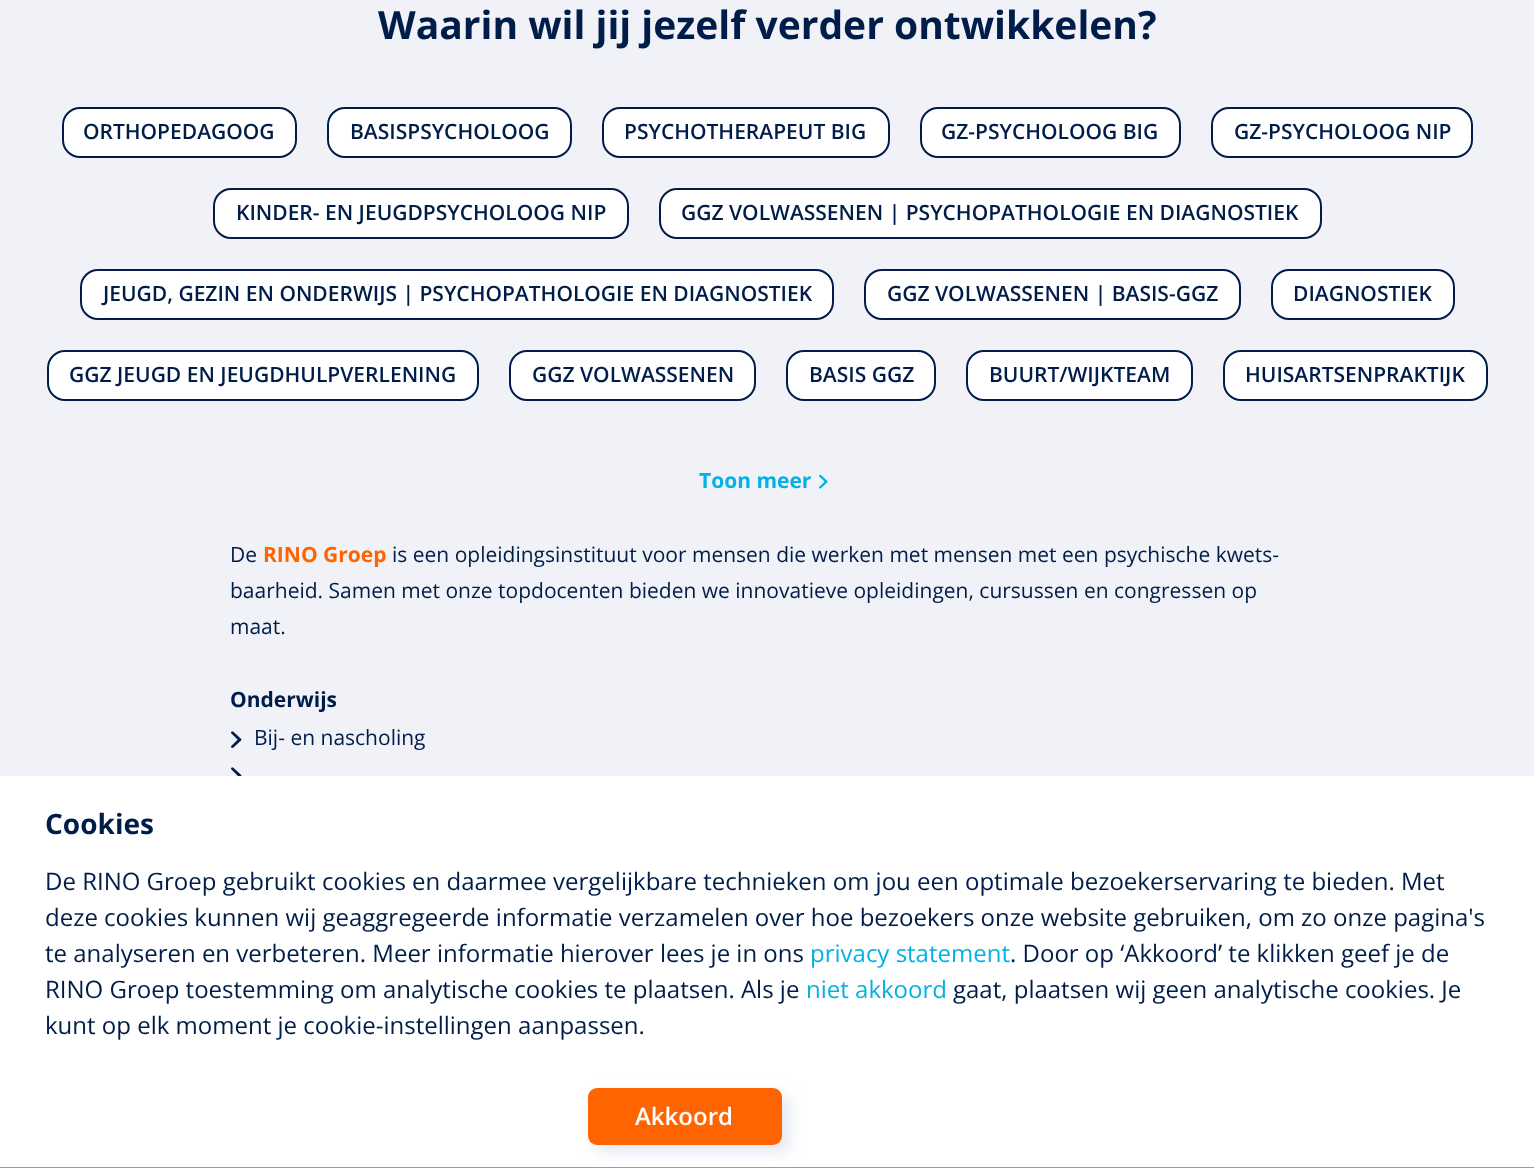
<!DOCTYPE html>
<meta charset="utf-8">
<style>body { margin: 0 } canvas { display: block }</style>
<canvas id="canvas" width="1534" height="1168"></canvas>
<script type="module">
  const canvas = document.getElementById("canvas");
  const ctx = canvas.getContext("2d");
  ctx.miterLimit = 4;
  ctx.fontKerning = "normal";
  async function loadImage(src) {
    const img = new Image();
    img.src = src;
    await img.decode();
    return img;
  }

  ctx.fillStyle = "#f0f2f7";
  ctx.fillRect(0, 0, 1534, 1168);
  ctx.font = "bold 39px Open Sans";
  ctx.fillStyle = "#001d49";
  ctx.fillText("Waarin wil jij jezelf verder ontwikkelen?", 378, 39);
  ctx.fillStyle = "#ffffff";
  ctx.beginPath();
  ctx.roundRect(63, 108, 233, 49, 17);
  ctx.fill();
  ctx.strokeStyle = "#001d49";
  ctx.lineWidth = 2;
  ctx.stroke();
  ctx.font = "600 21px Open Sans";
  ctx.fillStyle = "#001d49";
  ctx.fillText("ORTHOPEDAGOOG", 83, 139);
  ctx.fillStyle = "#ffffff";
  ctx.beginPath();
  ctx.roundRect(328, 108, 243, 49, 17);
  ctx.fill();
  ctx.stroke();
  ctx.fillStyle = "#001d49";
  ctx.fillText("BASISPSYCHOLOOG", 350, 139);
  ctx.fillStyle = "#ffffff";
  ctx.beginPath();
  ctx.roundRect(603, 108, 286, 49, 17);
  ctx.fill();
  ctx.stroke();
  ctx.fillStyle = "#001d49";
  ctx.fillText("PSYCHOTHERAPEUT BIG", 624, 139);
  ctx.fillStyle = "#ffffff";
  ctx.beginPath();
  ctx.roundRect(921, 108, 259, 49, 17);
  ctx.fill();
  ctx.stroke();
  ctx.fillStyle = "#001d49";
  ctx.fillText("GZ-PSYCHOLOOG BIG", 941, 139);
  ctx.fillStyle = "#ffffff";
  ctx.beginPath();
  ctx.roundRect(1212, 108, 260, 49, 17);
  ctx.fill();
  ctx.stroke();
  ctx.fillStyle = "#001d49";
  ctx.fillText("GZ-PSYCHOLOOG NIP", 1234, 139);
  ctx.fillStyle = "#ffffff";
  ctx.beginPath();
  ctx.roundRect(214, 189, 414, 49, 17);
  ctx.fill();
  ctx.stroke();
  ctx.fillStyle = "#001d49";
  ctx.fillText("KINDER- EN JEUGDPSYCHOLOOG NIP", 236, 220);
  ctx.fillStyle = "#ffffff";
  ctx.beginPath();
  ctx.roundRect(660, 189, 661, 49, 17);
  ctx.fill();
  ctx.stroke();
  ctx.fillStyle = "#001d49";
  ctx.fillText("GGZ VOLWASSENEN | PSYCHOPATHOLOGIE EN DIAGNOSTIEK", 681, 220);
  ctx.fillStyle = "#ffffff";
  ctx.beginPath();
  ctx.roundRect(81, 270, 752, 49, 17);
  ctx.fill();
  ctx.stroke();
  ctx.fillStyle = "#001d49";
  ctx.fillText("JEUGD, GEZIN EN ONDERWIJS | PSYCHOPATHOLOGIE EN DIAGNOSTIEK", 103, 301);
  ctx.fillStyle = "#ffffff";
  ctx.beginPath();
  ctx.roundRect(865, 270, 375, 49, 17);
  ctx.fill();
  ctx.stroke();
  ctx.fillStyle = "#001d49";
  ctx.fillText("GGZ VOLWASSENEN | BASIS-GGZ", 887, 301);
  ctx.fillStyle = "#ffffff";
  ctx.beginPath();
  ctx.roundRect(1272, 270, 182, 49, 17);
  ctx.fill();
  ctx.stroke();
  ctx.fillStyle = "#001d49";
  ctx.fillText("DIAGNOSTIEK", 1293, 301);
  ctx.fillStyle = "#ffffff";
  ctx.beginPath();
  ctx.roundRect(48, 351, 430, 49, 17);
  ctx.fill();
  ctx.stroke();
  ctx.fillStyle = "#001d49";
  ctx.fillText("GGZ JEUGD EN JEUGDHULPVERLENING", 69, 382);
  ctx.fillStyle = "#ffffff";
  ctx.beginPath();
  ctx.roundRect(510, 351, 245, 49, 17);
  ctx.fill();
  ctx.stroke();
  ctx.fillStyle = "#001d49";
  ctx.fillText("GGZ VOLWASSENEN", 532, 382);
  ctx.fillStyle = "#ffffff";
  ctx.beginPath();
  ctx.roundRect(787, 351, 148, 49, 17);
  ctx.fill();
  ctx.stroke();
  ctx.fillStyle = "#001d49";
  ctx.fillText("BASIS GGZ", 809, 382);
  ctx.fillStyle = "#ffffff";
  ctx.beginPath();
  ctx.roundRect(967, 351, 225, 49, 17);
  ctx.fill();
  ctx.stroke();
  ctx.fillStyle = "#001d49";
  ctx.fillText("BUURT/WIJKTEAM", 989, 382);
  ctx.fillStyle = "#ffffff";
  ctx.beginPath();
  ctx.roundRect(1224, 351, 263, 49, 17);
  ctx.fill();
  ctx.stroke();
  ctx.fillStyle = "#001d49";
  ctx.fillText("HUISARTSENPRAKTIJK", 1245, 382);
  ctx.font = "bold 21px Open Sans";
  ctx.fillStyle = "#03b1e3";
  ctx.fillText("Toon meer", 699, 488);
  ctx.drawImage(await loadImage("img1.png"), 819, 474, 9, 15);
  ctx.font = "21px Open Sans";
  ctx.fillStyle = "#001d49";
  ctx.fillText("De", 230, 562);
  ctx.font = "bold 21px Open Sans";
  ctx.fillStyle = "#ff6400";
  ctx.fillText("RINO Groep", 263, 562);
  ctx.font = "21px Open Sans";
  ctx.fillStyle = "#001d49";
  ctx.fillText("is een opleidingsinstituut voor mensen die werken met mensen met een psychische kwets-", 392, 562);
  ctx.fillText("baarheid. Samen met onze topdocenten bieden we innovatieve opleidingen, cursussen en congressen op", 230, 598);
  ctx.fillText("maat.", 230, 634);
  ctx.font = "bold 21px Open Sans";
  ctx.fillText("Onderwijs", 230, 707);
  ctx.drawImage(await loadImage("img2.png"), 231, 731, 11, 17);
  ctx.font = "21px Open Sans";
  ctx.fillText("Bij- en nascholing", 254, 745);
  ctx.drawImage(await loadImage("img3.png"), 231, 767, 11, 9);
  ctx.fillStyle = "#ffffff";
  ctx.fillRect(0, 776, 1534, 391);
  ctx.fillStyle = "#9b9b9b";
  ctx.fillRect(0, 1167, 1534, 1);
  ctx.font = "bold 28px Open Sans";
  ctx.fillStyle = "#001d49";
  ctx.fillText("Cookies", 45, 834);
  ctx.font = "24px Open Sans";
  ctx.fillText("De RINO Groep gebruikt cookies en daarmee vergelijkbare technieken om jou een optimale bezoekerservaring te bieden. Met", 45, 890);
  ctx.fillText("deze cookies kunnen wij geaggregeerde informatie verzamelen over hoe bezoekers onze website gebruiken, om zo onze pagina's", 45, 926);
  ctx.fillText("te analyseren en verbeteren. Meer informatie hierover lees je in ons", 45, 962);
  ctx.fillStyle = "#03b1e3";
  ctx.fillText("privacy statement", 810, 962);
  ctx.fillStyle = "#001d49";
  ctx.fillText(". Door op ‘Akkoord’ te klikken geef je de", 1010, 962);
  ctx.fillText("RINO Groep toestemming om analytische cookies te plaatsen. Als je", 45, 998);
  ctx.fillStyle = "#03b1e3";
  ctx.fillText("niet akkoord", 806, 998);
  ctx.fillStyle = "#001d49";
  ctx.fillText("gaat, plaatsen wij geen analytische cookies. Je", 953, 998);
  ctx.fillText("kunt op elk moment je cookie-instellingen aanpassen.", 45, 1034);
  ctx.fillStyle = "rgba(207, 213, 232, 0.6)";
  ctx.filter = "blur(7.5px)";
  ctx.beginPath();
  ctx.roundRect(596, 1095, 193, 57, 9);
  ctx.fill();
  ctx.filter = "none";
  ctx.fillStyle = "#ff6400";
  ctx.beginPath();
  ctx.roundRect(588, 1088, 194, 57, 9);
  ctx.fill();
  ctx.font = "600 24px Open Sans";
  ctx.fillStyle = "#ffffff";
  ctx.fillText("Akkoord", 635, 1125);
</script>
